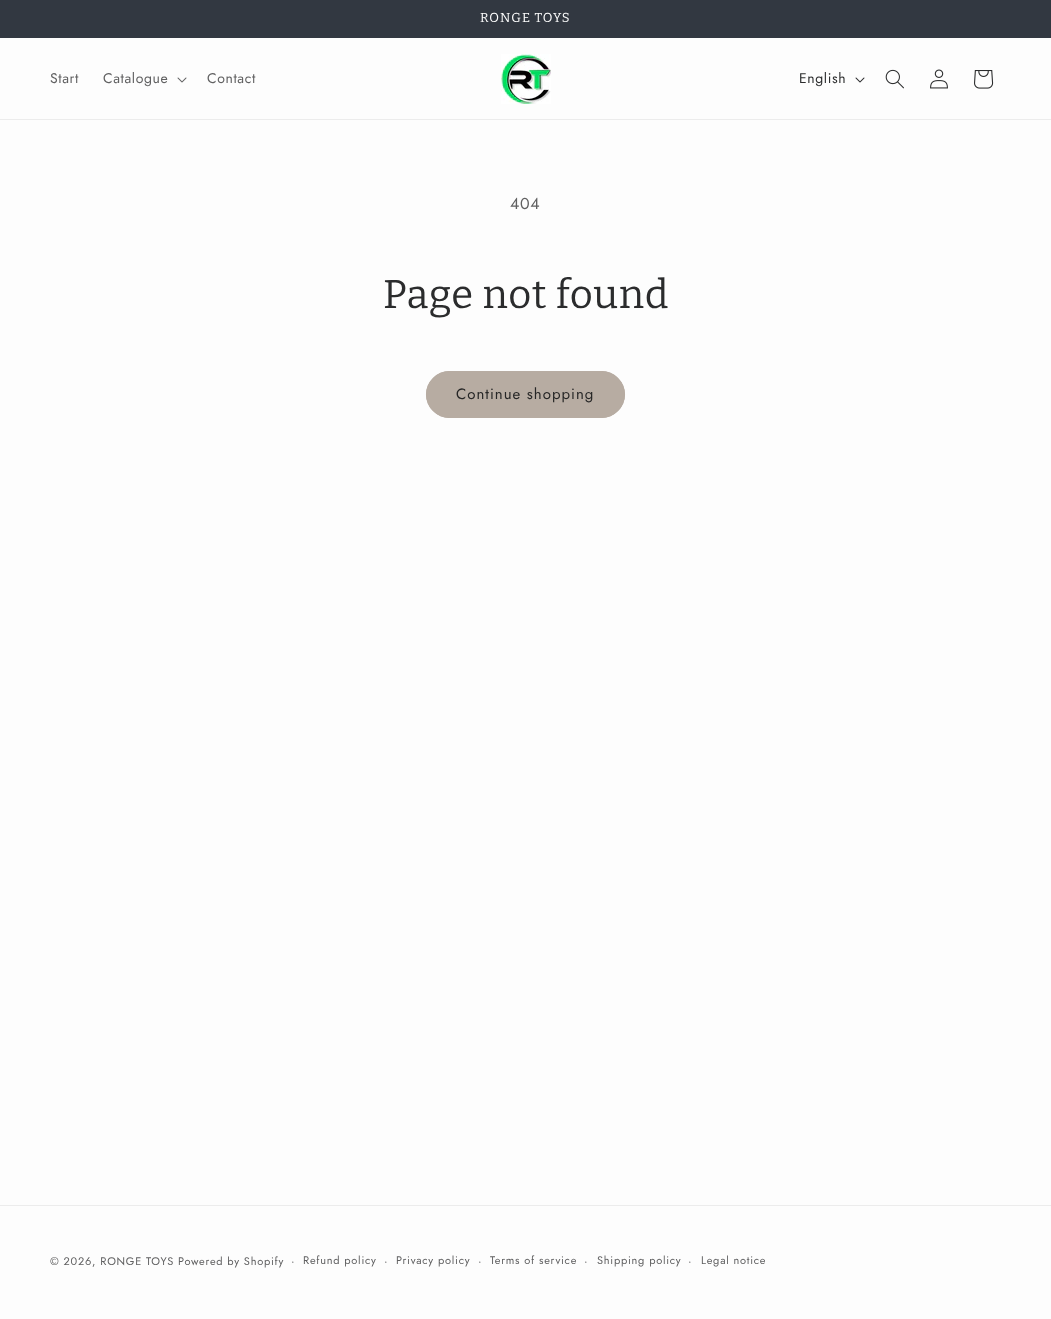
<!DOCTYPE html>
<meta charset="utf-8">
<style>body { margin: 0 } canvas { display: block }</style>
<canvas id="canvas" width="1051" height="1319"></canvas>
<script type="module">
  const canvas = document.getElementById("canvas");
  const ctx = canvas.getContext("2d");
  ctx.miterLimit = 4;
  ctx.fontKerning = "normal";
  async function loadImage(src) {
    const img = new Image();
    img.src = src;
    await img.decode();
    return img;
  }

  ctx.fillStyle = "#fdfdfd";
  ctx.fillRect(0, 0, 1051, 1319);
  ctx.fillStyle = "#323841";
  ctx.fillRect(0, 0, 1051, 38);
  ctx.letterSpacing = "1px";
  ctx.font = "13px Bitter";
  ctx.fillStyle = "#ffffff";
  ctx.fillText("RONGE TOYS", 480, 22);
  ctx.fillStyle = "#ececec";
  ctx.fillRect(0, 119, 1051, 1);
  ctx.letterSpacing = "0.6px";
  ctx.font = "14px Jost";
  ctx.fillStyle = "#606061";
  ctx.fillText("Start", 50, 83);
  ctx.fillText("Catalogue", 103, 83);
  ctx.drawImage(await loadImage("img1.png"), 177, 77, 10, 6);
  ctx.fillText("Contact", 207, 83);
  ctx.drawImage(await loadImage("img2.png"), 501, 54, 50, 50);
  ctx.fillStyle = "#2b2c2d";
  ctx.fillText("English", 799, 83);
  ctx.drawImage(await loadImage("img3.png"), 855, 77, 10, 6);
  ctx.drawImage(await loadImage("img4.png"), 885, 69, 19, 20);
  ctx.drawImage(await loadImage("img5.png"), 930, 69, 18, 20);
  ctx.drawImage(await loadImage("img6.png"), 974, 70, 20, 19);
  ctx.font = "16px Jost";
  ctx.fillStyle = "#606061";
  ctx.fillText("404", 510, 209);
  ctx.font = "40px Bitter";
  ctx.fillStyle = "#2b2c2d";
  ctx.fillText("Page not found", 383, 308);
  ctx.fillStyle = "#b7aca2";
  ctx.beginPath();
  ctx.roundRect(426, 371, 199, 47, 23.5);
  ctx.fill();
  ctx.beginPath();
  ctx.roundRect(426.5, 371.5, 198, 46, 23);
  ctx.strokeStyle = "#b7aca2";
  ctx.stroke();
  ctx.letterSpacing = "1px";
  ctx.font = "15px Jost";
  ctx.fillStyle = "#262626";
  ctx.fillText("Continue shopping", 456, 399);
  ctx.fillStyle = "#ececec";
  ctx.fillRect(0, 1205, 1051, 1);
  ctx.letterSpacing = "0.75px";
  ctx.font = "11px Jost";
  ctx.fillStyle = "#606061";
  ctx.fillText("© 2026, RONGE TOYS", 50, 1265);
  ctx.fillText("Powered by Shopify", 178, 1265);
  ctx.font = "12px Jost";
  ctx.fillText("·", 291, 1265);
  ctx.font = "11px Jost";
  ctx.fillText("Refund policy", 303, 1264);
  ctx.font = "12px Jost";
  ctx.fillText("·", 384, 1265);
  ctx.font = "11px Jost";
  ctx.fillText("Privacy policy", 396, 1264);
  ctx.font = "12px Jost";
  ctx.fillText("·", 478, 1265);
  ctx.font = "11px Jost";
  ctx.fillText("Terms of service", 490, 1264);
  ctx.font = "12px Jost";
  ctx.fillText("·", 584, 1265);
  ctx.font = "11px Jost";
  ctx.fillText("Shipping policy", 597, 1264);
  ctx.font = "12px Jost";
  ctx.fillText("·", 688, 1265);
  ctx.font = "11px Jost";
  ctx.fillText("Legal notice", 701, 1264);
</script>
